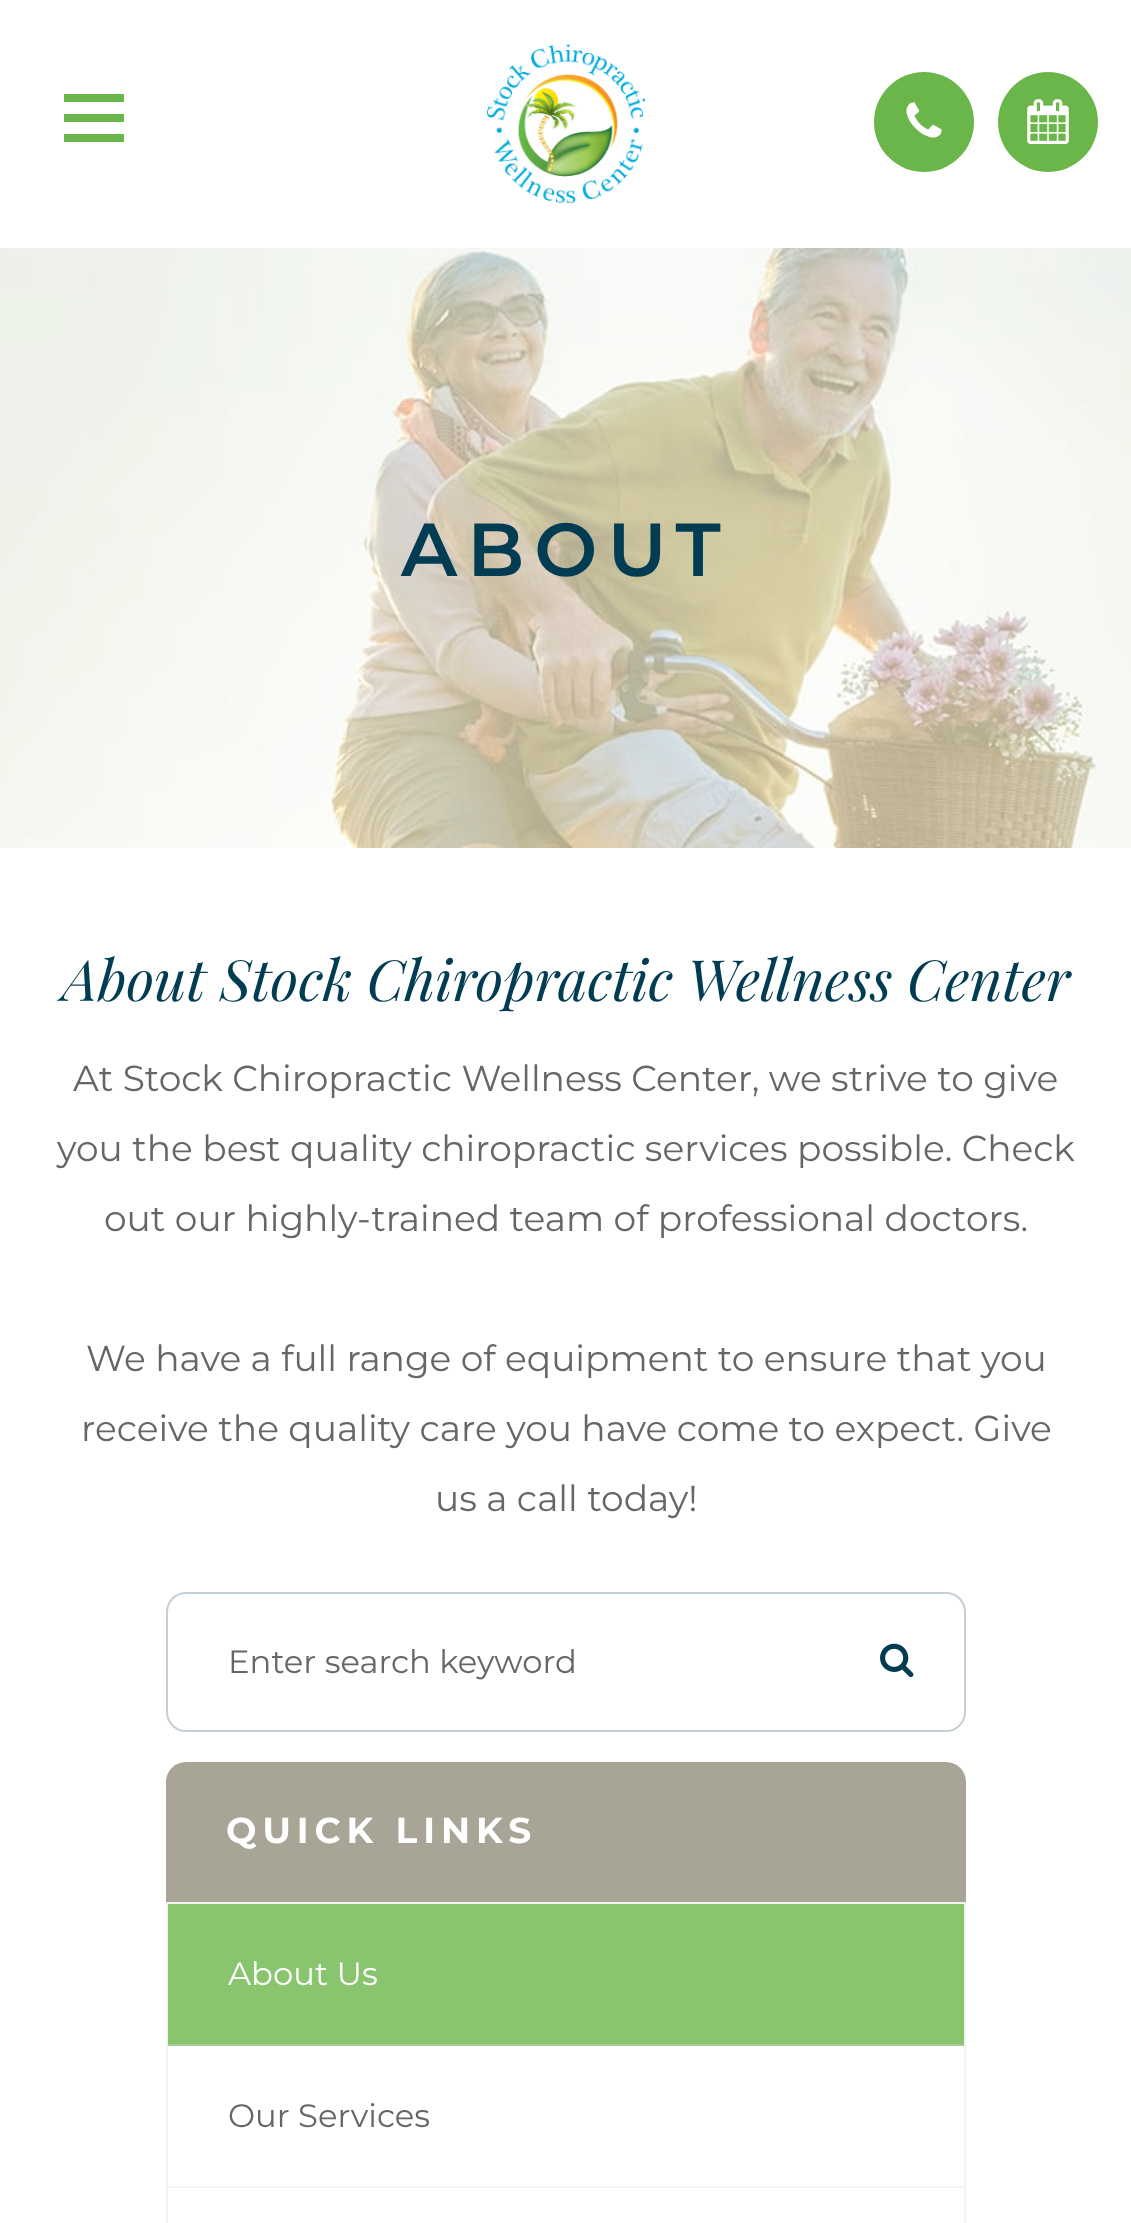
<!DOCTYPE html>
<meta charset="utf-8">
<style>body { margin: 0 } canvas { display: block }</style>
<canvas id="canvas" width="1131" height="2223"></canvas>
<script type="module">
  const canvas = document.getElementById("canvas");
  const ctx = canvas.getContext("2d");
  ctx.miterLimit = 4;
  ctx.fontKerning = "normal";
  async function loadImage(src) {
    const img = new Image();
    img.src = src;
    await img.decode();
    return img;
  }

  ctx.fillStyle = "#ffffff";
  ctx.fillRect(0, 0, 1131, 2223);
  ctx.fillStyle = "#6ab64a";
  ctx.fillRect(64, 134, 60, 8);
  ctx.fillRect(64, 94, 60, 8);
  ctx.fillRect(64, 114, 60, 8);
  ctx.drawImage(await loadImage("img1.png"), 487, 44, 159, 160);
  ctx.beginPath();
  ctx.arc(924, 122, 50, 0, Math.PI * 2);
  ctx.fill();
  ctx.drawImage(await loadImage("img2.png"), 906, 102, 36, 36);
  ctx.beginPath();
  ctx.arc(1048, 122, 50, 0, Math.PI * 2);
  ctx.fill();
  ctx.drawImage(await loadImage("img3.png"), 1027, 99, 42, 45);
  ctx.drawImage(await loadImage("img4.png"), 0, 248, 1131, 600);
  ctx.letterSpacing = "10px";
  ctx.font = "600 75px Montserrat";
  ctx.fillStyle = "#023c52";
  ctx.fillText("ABOUT", 401, 576);
  ctx.letterSpacing = "0px";
  ctx.font = "italic 56.9px Playfair Display";
  ctx.fillText("About Stock Chiropractic Wellness Center", 62, 1001);
  ctx.font = "36px Montserrat";
  ctx.fillStyle = "#666666";
  ctx.fillText("At Stock Chiropractic Wellness Center, we strive to give", 73, 1091);
  ctx.fillText("you the best quality chiropractic services possible. Check", 57, 1161);
  ctx.fillText("out our highly-trained team of professional doctors.", 104, 1231);
  ctx.fillText("We have a full range of equipment to ensure that you", 86, 1371);
  ctx.fillText("receive the quality care you have come to expect. Give", 81, 1441);
  ctx.fillText("us a call today!", 435, 1511);
  ctx.beginPath();
  ctx.roundRect(167, 1593, 798, 138, 19);
  ctx.strokeStyle = "#c6cfd6";
  ctx.lineWidth = 2;
  ctx.stroke();
  ctx.font = "32.25px Montserrat";
  ctx.fillText("Enter search keyword", 228, 1673);
  ctx.drawImage(await loadImage("img5.png"), 880, 1643, 34, 35);
  ctx.fillStyle = "#a8a596";
  ctx.beginPath();
  ctx.roundRect(166, 1762, 800, 140, [20, 20, 0, 0]);
  ctx.fill();
  ctx.letterSpacing = "6px";
  ctx.font = "bold 36px Montserrat";
  ctx.fillStyle = "#ffffff";
  ctx.fillText("QUICK LINKS", 226, 1843);
  ctx.strokeStyle = "#f2f2f2";
  ctx.strokeRect(167, 1903, 798, 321);
  ctx.fillStyle = "#88c56e";
  ctx.fillRect(168, 1904, 796, 140);
  ctx.fillStyle = "#a1cd92";
  ctx.fillRect(168, 2044, 796, 2);
  ctx.letterSpacing = "0px";
  ctx.font = "32.25px Montserrat";
  ctx.fillStyle = "#ffffff";
  ctx.fillText("About Us", 228, 1985);
  ctx.fillStyle = "#f4f6f8";
  ctx.fillRect(168, 2186, 796, 2);
  ctx.fillStyle = "#666666";
  ctx.fillText("Our Services", 228, 2127);
</script>
